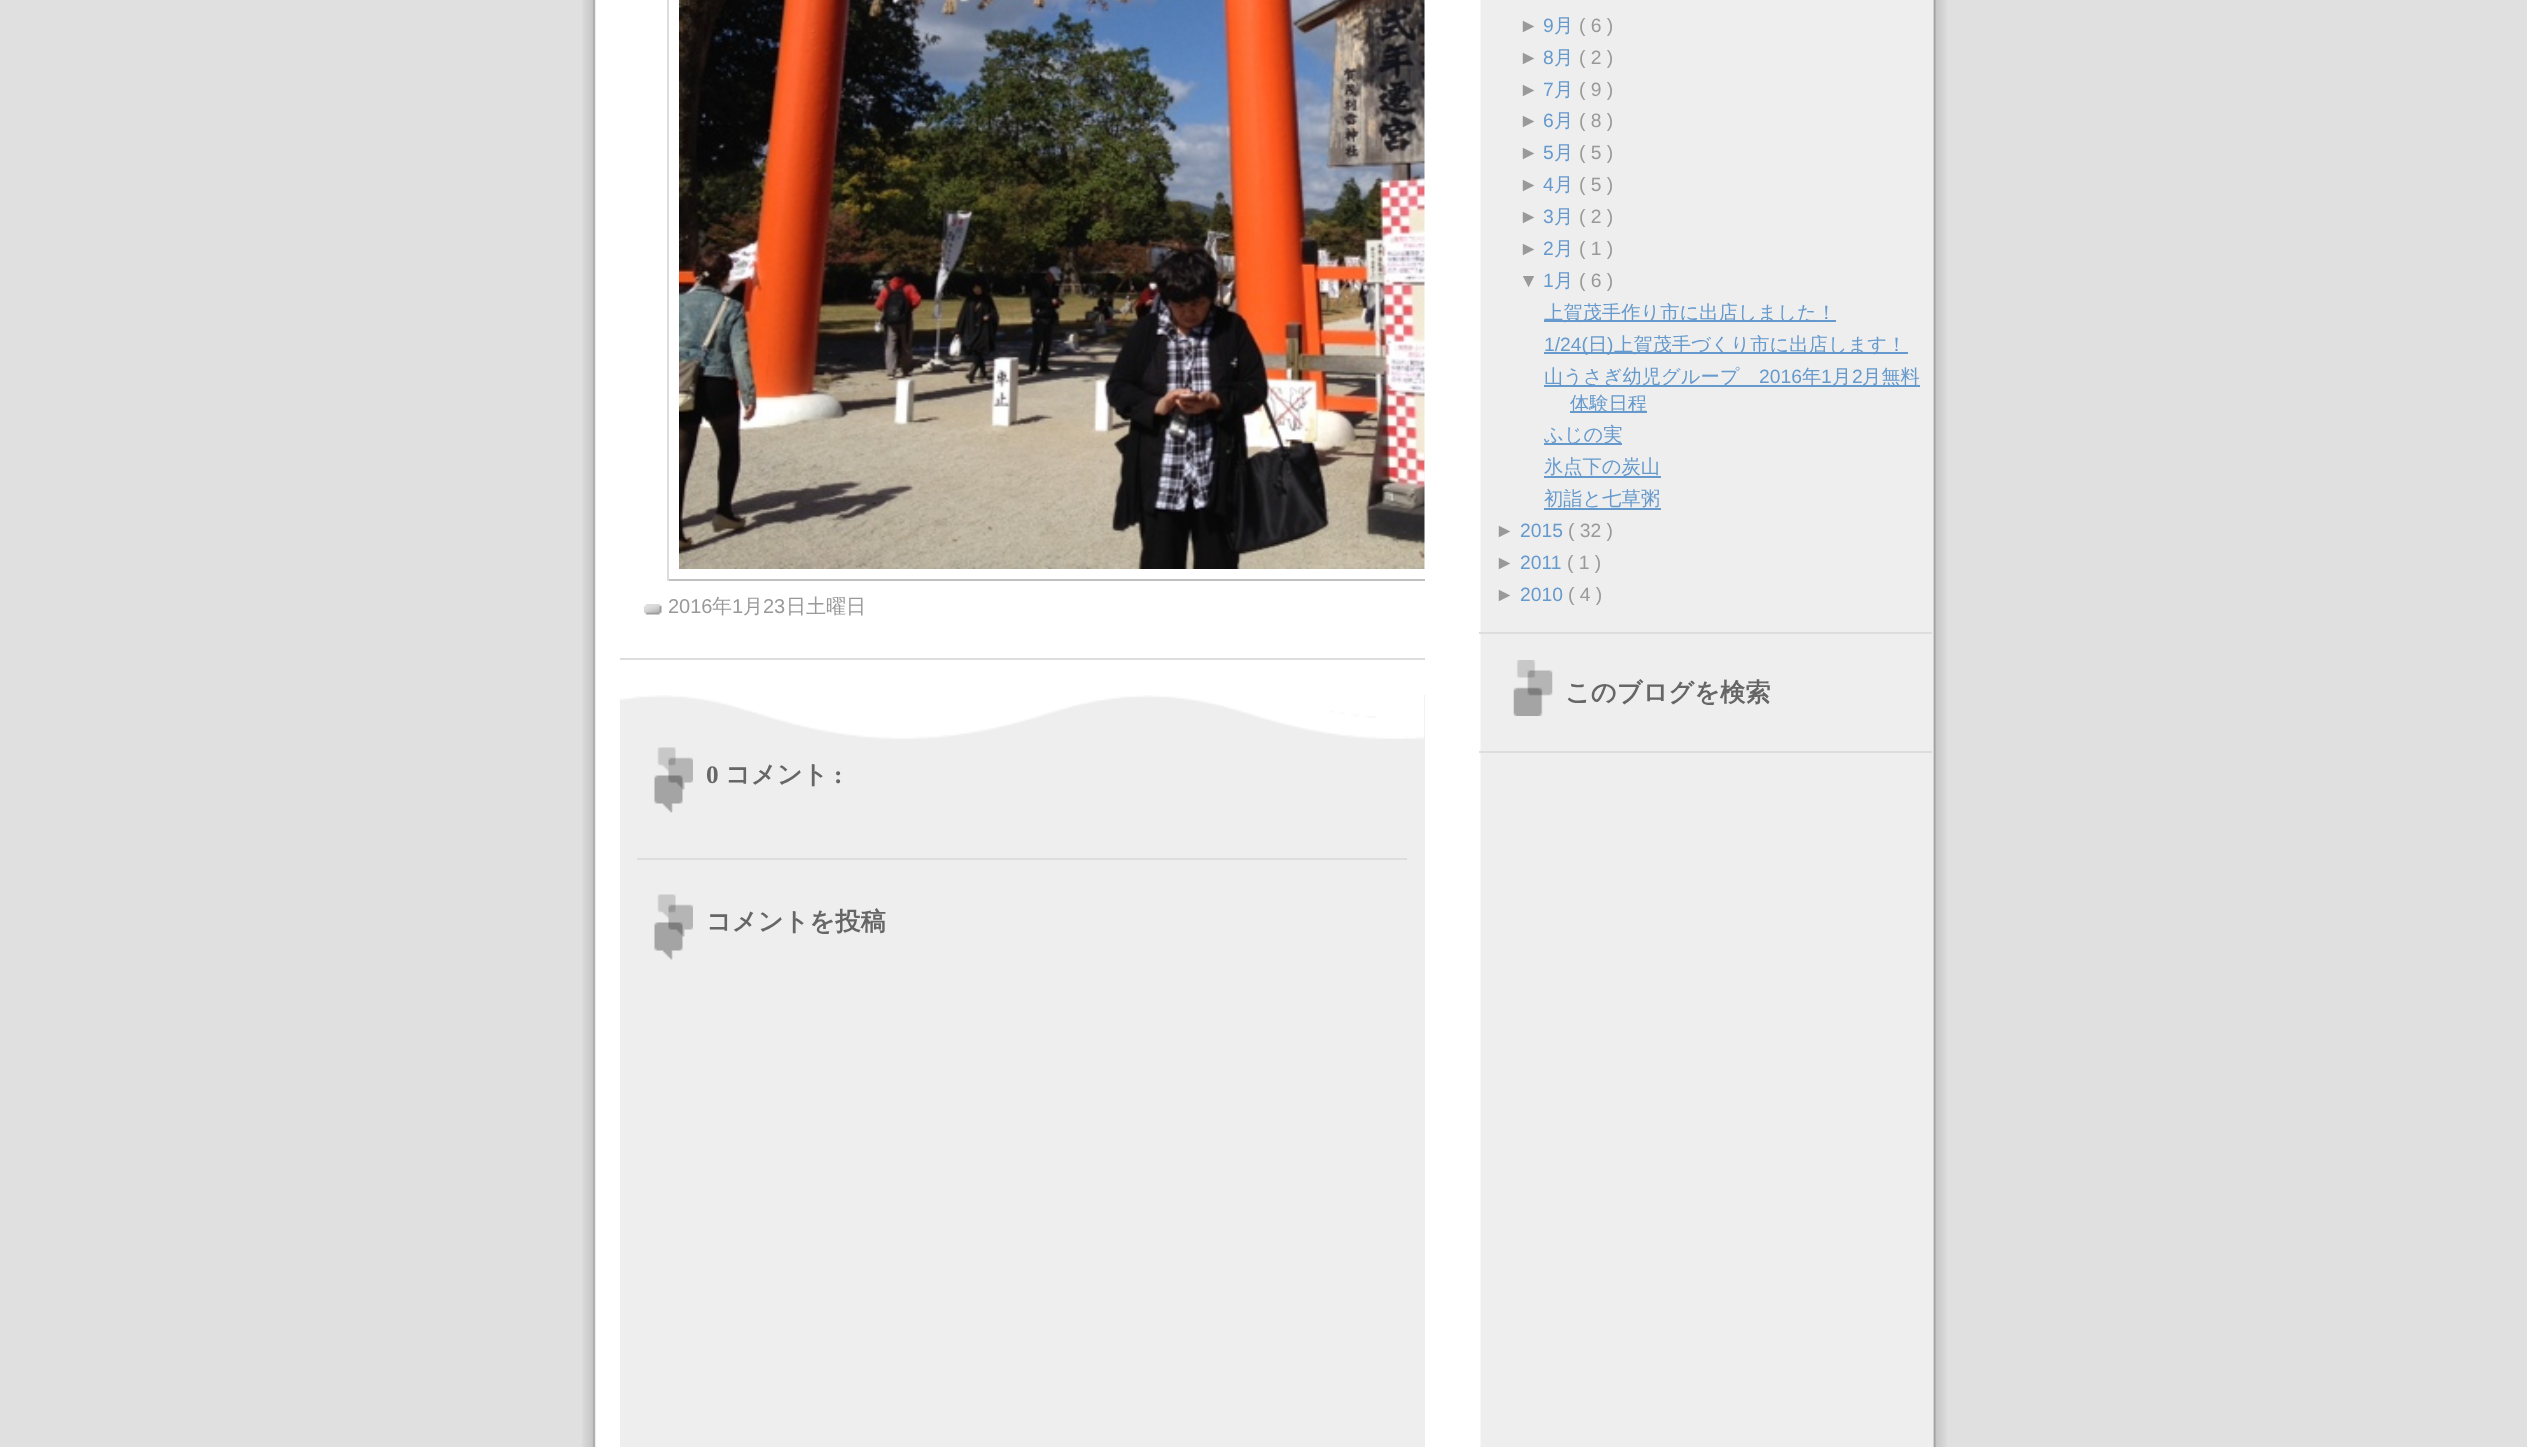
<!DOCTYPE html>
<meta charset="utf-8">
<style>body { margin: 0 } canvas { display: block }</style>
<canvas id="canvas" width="2527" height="1447"></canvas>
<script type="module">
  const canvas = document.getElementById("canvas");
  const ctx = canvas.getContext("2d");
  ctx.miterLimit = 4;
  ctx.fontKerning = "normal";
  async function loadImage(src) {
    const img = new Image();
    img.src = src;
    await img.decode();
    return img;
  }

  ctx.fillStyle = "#e0e0e0";
  ctx.fillRect(0, 0, 2527, 1447);
  ctx.drawImage(await loadImage("img1.png"), 582, 0, 1365, 1447);
  ctx.fillStyle = "#dddddd";
  ctx.fillRect(1479, 632, 453, 2);
  ctx.font = "19.3px Liberation Sans";
  ctx.fillStyle = "#999999";
  ctx.fillText("►", 1519, 32);
  ctx.fillStyle = "#6699cc";
  ctx.fillText("9", 1543, 32);
  ctx.font = "500 19.3px WenQuanYi Zen Hei";
  ctx.fillText("月", 1554, 32);
  ctx.font = "19.3px Liberation Sans";
  ctx.fillStyle = "#999999";
  ctx.fillText("( 6 )", 1579, 32);
  ctx.fillText("►", 1519, 64);
  ctx.fillStyle = "#6699cc";
  ctx.fillText("8", 1543, 64);
  ctx.font = "500 19.3px WenQuanYi Zen Hei";
  ctx.fillText("月", 1554, 64);
  ctx.font = "19.3px Liberation Sans";
  ctx.fillStyle = "#999999";
  ctx.fillText("( 2 )", 1579, 64);
  ctx.fillText("►", 1519, 96);
  ctx.fillStyle = "#6699cc";
  ctx.fillText("7", 1543, 96);
  ctx.font = "500 19.3px WenQuanYi Zen Hei";
  ctx.fillText("月", 1554, 96);
  ctx.font = "19.3px Liberation Sans";
  ctx.fillStyle = "#999999";
  ctx.fillText("( 9 )", 1579, 96);
  ctx.fillText("►", 1519, 127);
  ctx.fillStyle = "#6699cc";
  ctx.fillText("6", 1543, 127);
  ctx.font = "500 19.3px WenQuanYi Zen Hei";
  ctx.fillText("月", 1554, 127);
  ctx.font = "19.3px Liberation Sans";
  ctx.fillStyle = "#999999";
  ctx.fillText("( 8 )", 1579, 127);
  ctx.fillText("►", 1519, 159);
  ctx.fillStyle = "#6699cc";
  ctx.fillText("5", 1543, 159);
  ctx.font = "500 19.3px WenQuanYi Zen Hei";
  ctx.fillText("月", 1554, 159);
  ctx.font = "19.3px Liberation Sans";
  ctx.fillStyle = "#999999";
  ctx.fillText("( 5 )", 1579, 159);
  ctx.fillText("►", 1519, 191);
  ctx.fillStyle = "#6699cc";
  ctx.fillText("4", 1543, 191);
  ctx.font = "500 19.3px WenQuanYi Zen Hei";
  ctx.fillText("月", 1554, 191);
  ctx.font = "19.3px Liberation Sans";
  ctx.fillStyle = "#999999";
  ctx.fillText("( 5 )", 1579, 191);
  ctx.fillText("►", 1519, 223);
  ctx.fillStyle = "#6699cc";
  ctx.fillText("3", 1543, 223);
  ctx.font = "500 19.3px WenQuanYi Zen Hei";
  ctx.fillText("月", 1554, 223);
  ctx.font = "19.3px Liberation Sans";
  ctx.fillStyle = "#999999";
  ctx.fillText("( 2 )", 1579, 223);
  ctx.fillText("►", 1519, 255);
  ctx.fillStyle = "#6699cc";
  ctx.fillText("2", 1543, 255);
  ctx.font = "500 19.3px WenQuanYi Zen Hei";
  ctx.fillText("月", 1554, 255);
  ctx.font = "19.3px Liberation Sans";
  ctx.fillStyle = "#999999";
  ctx.fillText("( 1 )", 1579, 255);
  ctx.fillText("▼", 1519, 287);
  ctx.fillStyle = "#6699cc";
  ctx.fillText("1", 1543, 287);
  ctx.font = "500 19.3px WenQuanYi Zen Hei";
  ctx.fillText("月", 1554, 287);
  ctx.font = "19.3px Liberation Sans";
  ctx.fillStyle = "#999999";
  ctx.fillText("( 6 )", 1579, 287);
  ctx.fillStyle = "#6699cc";
  ctx.fillRect(1544, 320, 292, 2);
  ctx.font = "500 19.3px WenQuanYi Zen Hei";
  ctx.fillText("上賀茂手作り市に出店しました！", 1544, 319);
  ctx.fillRect(1544, 352, 364, 2);
  ctx.font = "19.3px Liberation Sans";
  ctx.fillText("1/24(", 1544, 351);
  ctx.font = "500 19.3px WenQuanYi Zen Hei";
  ctx.fillText("日", 1588, 351);
  ctx.font = "19.3px Liberation Sans";
  ctx.fillText(")", 1607, 351);
  ctx.font = "500 19.3px WenQuanYi Zen Hei";
  ctx.fillText("上賀茂手づくり市に出店します！", 1614, 351);
  ctx.fillRect(1544, 385, 376, 2);
  ctx.fillText("山うさぎ幼児グループ", 1544, 383);
  ctx.font = "19.3px Liberation Sans";
  ctx.fillText("2016", 1759, 383);
  ctx.font = "500 19.3px WenQuanYi Zen Hei";
  ctx.fillText("年", 1802, 383);
  ctx.font = "19.3px Liberation Sans";
  ctx.fillText("1", 1821, 383);
  ctx.font = "500 19.3px WenQuanYi Zen Hei";
  ctx.fillText("月", 1832, 383);
  ctx.font = "19.3px Liberation Sans";
  ctx.fillText("2", 1852, 383);
  ctx.font = "500 19.3px WenQuanYi Zen Hei";
  ctx.fillText("月無料", 1862, 383);
  ctx.fillRect(1570, 411, 77, 2);
  ctx.fillText("体験日程", 1570, 410);
  ctx.fillRect(1544, 443, 78, 2);
  ctx.fillText("ふじの実", 1544, 441);
  ctx.fillRect(1544, 476, 117, 2);
  ctx.fillText("氷点下の炭山", 1544, 473);
  ctx.fillText("初詣と七草粥", 1544, 505);
  ctx.fillRect(1544, 508, 117, 2);
  ctx.font = "19.3px Liberation Sans";
  ctx.fillStyle = "#999999";
  ctx.fillText("►", 1495, 537);
  ctx.fillStyle = "#6699cc";
  ctx.fillText("2015", 1520, 537);
  ctx.fillStyle = "#999999";
  ctx.fillText("( 32 )", 1568, 537);
  ctx.fillText("►", 1495, 569);
  ctx.fillStyle = "#6699cc";
  ctx.fillText("2011", 1520, 569);
  ctx.fillStyle = "#999999";
  ctx.fillText("( 1 )", 1567, 569);
  ctx.fillText("►", 1495, 601);
  ctx.fillStyle = "#6699cc";
  ctx.fillText("2010", 1520, 601);
  ctx.fillStyle = "#999999";
  ctx.fillText("( 4 )", 1568, 601);
  ctx.fillStyle = "#dddddd";
  ctx.fillRect(1479, 751, 453, 2);
  ctx.drawImage(await loadImage("img2.png"), 1513, 660, 40, 56);
  ctx.font = "bold 25.25px WenQuanYi Zen Hei";
  ctx.fillStyle = "#666666";
  ctx.fillText("このブログを検索", 1565, 701);
  ctx.fillStyle = "#dddddd";
  ctx.fillRect(620, 658, 805, 2);
  ctx.fillStyle = "#c0c0c0";
  ctx.fillRect(667, 579, 758, 2);
  ctx.fillStyle = "#dddddd";
  ctx.fillRect(667, 0, 2, 581);
  ctx.drawImage(await loadImage("img3.png"), 679, 0, 746, 569);
  ctx.drawImage(await loadImage("img4.png"), 644, 604, 18, 11);
  ctx.font = "20px Liberation Sans";
  ctx.fillStyle = "#999999";
  ctx.fillText("2016", 668, 613);
  ctx.font = "500 20px WenQuanYi Zen Hei";
  ctx.fillText("年", 712, 613);
  ctx.font = "20px Liberation Sans";
  ctx.fillText("1", 732, 613);
  ctx.font = "500 20px WenQuanYi Zen Hei";
  ctx.fillText("月", 743, 613);
  ctx.font = "20px Liberation Sans";
  ctx.fillText("23", 763, 613);
  ctx.font = "500 20px WenQuanYi Zen Hei";
  ctx.fillText("日土曜日", 786, 613);
  ctx.fillStyle = "#eeeeee";
  ctx.fillRect(620, 695, 805, 752);
  ctx.drawImage(await loadImage("img5.png"), 619, 695, 806, 44);
  ctx.drawImage(await loadImage("img6.png"), 654, 747, 39, 66);
  ctx.font = "bold 25.25px Liberation Serif";
  ctx.fillStyle = "#666666";
  ctx.fillText("0", 706, 783);
  ctx.font = "bold 25.25px WenQuanYi Zen Hei";
  ctx.fillText("コメント", 725, 783);
  ctx.font = "bold 25.25px Liberation Serif";
  ctx.fillText(":", 834, 783);
  ctx.fillStyle = "#dddddd";
  ctx.fillRect(637, 858, 770, 2);
  ctx.drawImage(await loadImage("img6.png"), 654, 894, 39, 66);
  ctx.font = "bold 25.25px WenQuanYi Zen Hei";
  ctx.fillStyle = "#666666";
  ctx.fillText("コメントを投稿", 706, 930);
</script>
